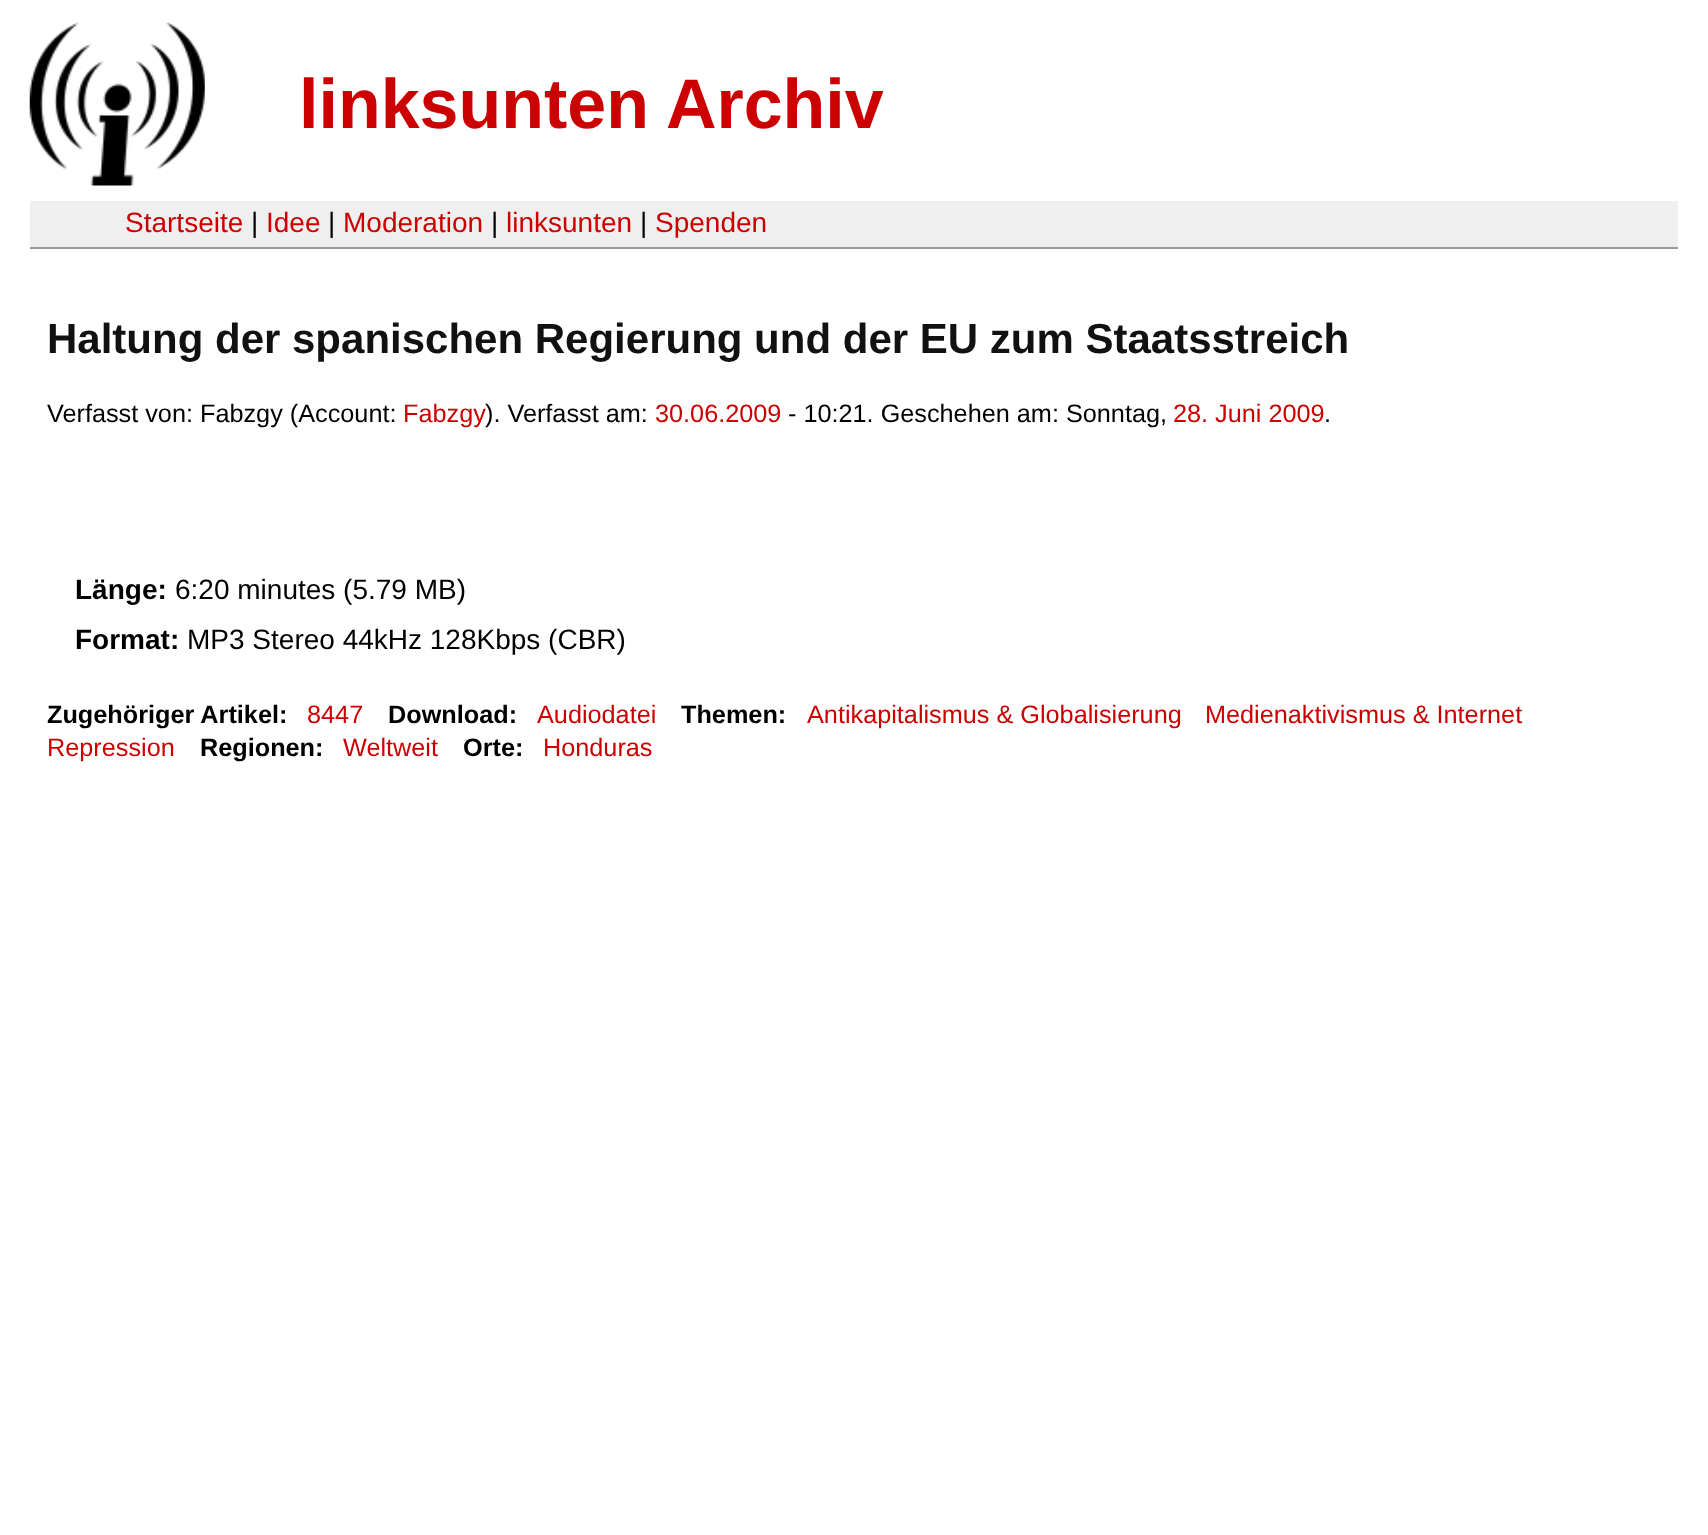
<!DOCTYPE html>
<meta charset="utf-8">
<style>body { margin: 0 } canvas { display: block }</style>
<canvas id="canvas" width="1708" height="1535"></canvas>
<script type="module">
  const canvas = document.getElementById("canvas");
  const ctx = canvas.getContext("2d");
  ctx.miterLimit = 4;
  ctx.fontKerning = "normal";
  async function loadImage(src) {
    const img = new Image();
    img.src = src;
    await img.decode();
    return img;
  }

  ctx.fillStyle = "#ffffff";
  ctx.fillRect(0, 0, 1708, 1535);
  ctx.drawImage(await loadImage("img1.png"), 29, 22, 176, 164);
  ctx.font = "bold 70px Liberation Sans";
  ctx.fillStyle = "#cc0000";
  ctx.fillText("linksunten Archiv", 299, 128);
  ctx.fillStyle = "#efefef";
  ctx.fillRect(30, 201, 1648, 46);
  ctx.fillStyle = "#999999";
  ctx.fillRect(30, 247, 1648, 2);
  ctx.font = "28px Liberation Sans";
  ctx.fillStyle = "#cc0000";
  ctx.fillText("Startseite", 125, 232);
  ctx.fillStyle = "#000000";
  ctx.fillText("|", 251, 232);
  ctx.fillStyle = "#cc0000";
  ctx.fillText("Idee", 266, 232);
  ctx.fillStyle = "#000000";
  ctx.fillText("|", 328, 232);
  ctx.fillStyle = "#cc0000";
  ctx.fillText("Moderation", 343, 232);
  ctx.fillStyle = "#000000";
  ctx.fillText("|", 491, 232);
  ctx.fillStyle = "#cc0000";
  ctx.fillText("linksunten", 506, 232);
  ctx.fillStyle = "#000000";
  ctx.fillText("|", 640, 232);
  ctx.fillStyle = "#cc0000";
  ctx.fillText("Spenden", 655, 232);
  ctx.font = "bold 42px Liberation Sans";
  ctx.fillStyle = "#111111";
  ctx.fillText("Haltung der spanischen Regierung und der EU zum Staatsstreich", 47, 353);
  ctx.font = "25.25px Liberation Sans";
  ctx.fillStyle = "#000000";
  ctx.fillText("Verfasst von: Fabzgy (Account:", 47, 422);
  ctx.fillStyle = "#cc0000";
  ctx.fillText("Fabzgy", 403, 422);
  ctx.fillStyle = "#000000";
  ctx.fillText("). Verfasst am:", 485, 422);
  ctx.fillStyle = "#cc0000";
  ctx.fillText("30.06.2009", 655, 422);
  ctx.fillStyle = "#000000";
  ctx.fillText("- 10:21. Geschehen am: Sonntag,", 788, 422);
  ctx.fillStyle = "#cc0000";
  ctx.fillText("28. Juni 2009", 1173, 422);
  ctx.fillStyle = "#000000";
  ctx.fillText(".", 1324, 422);
  ctx.font = "bold 28px Liberation Sans";
  ctx.fillText("Länge:", 75, 599);
  ctx.font = "28px Liberation Sans";
  ctx.fillText("6:20 minutes (5.79 MB)", 175, 599);
  ctx.font = "bold 28px Liberation Sans";
  ctx.fillText("Format:", 75, 649);
  ctx.font = "28px Liberation Sans";
  ctx.fillText("MP3 Stereo 44kHz 128Kbps (CBR)", 187, 649);
  ctx.font = "bold 25.25px Liberation Sans";
  ctx.fillText("Zugehöriger Artikel:", 47, 723);
  ctx.font = "25.25px Liberation Sans";
  ctx.fillStyle = "#cc0000";
  ctx.fillText("8447", 307, 723);
  ctx.font = "bold 25.25px Liberation Sans";
  ctx.fillStyle = "#000000";
  ctx.fillText("Download:", 388, 723);
  ctx.font = "25.25px Liberation Sans";
  ctx.fillStyle = "#cc0000";
  ctx.fillText("Audiodatei", 537, 723);
  ctx.font = "bold 25.25px Liberation Sans";
  ctx.fillStyle = "#000000";
  ctx.fillText("Themen:", 681, 723);
  ctx.font = "25.25px Liberation Sans";
  ctx.fillStyle = "#cc0000";
  ctx.fillText("Antikapitalismus & Globalisierung", 807, 723);
  ctx.fillText("Medienaktivismus & Internet", 1205, 723);
  ctx.fillText("Repression", 47, 756);
  ctx.font = "bold 25.25px Liberation Sans";
  ctx.fillStyle = "#000000";
  ctx.fillText("Regionen:", 200, 756);
  ctx.font = "25.25px Liberation Sans";
  ctx.fillStyle = "#cc0000";
  ctx.fillText("Weltweit", 343, 756);
  ctx.font = "bold 25.25px Liberation Sans";
  ctx.fillStyle = "#000000";
  ctx.fillText("Orte:", 463, 756);
  ctx.font = "25.25px Liberation Sans";
  ctx.fillStyle = "#cc0000";
  ctx.fillText("Honduras", 543, 756);
</script>
